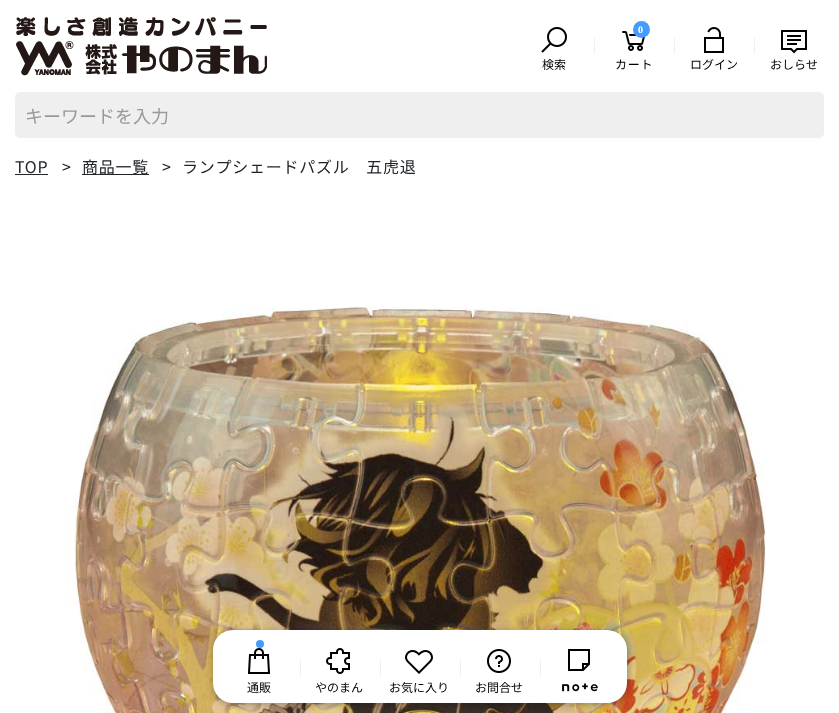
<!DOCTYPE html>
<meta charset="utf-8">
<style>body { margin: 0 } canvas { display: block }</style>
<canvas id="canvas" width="839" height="713"></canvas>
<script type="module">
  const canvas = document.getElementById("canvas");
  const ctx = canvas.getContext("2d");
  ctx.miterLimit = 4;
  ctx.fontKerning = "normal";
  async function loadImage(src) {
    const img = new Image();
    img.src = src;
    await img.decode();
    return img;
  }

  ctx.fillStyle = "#ffffff";
  ctx.fillRect(0, 0, 839, 713);
  ctx.drawImage(await loadImage("img1.png"), 16, 17, 251, 59);
  ctx.drawImage(await loadImage("img2.png"), 541, 27, 26, 26);
  ctx.font = "12px Noto Sans JP";
  ctx.fillStyle = "#000000";
  ctx.fillText("検索", 542, 69);
  ctx.fillStyle = "#efefef";
  ctx.fillRect(594, 38, 1, 16);
  ctx.drawImage(await loadImage("img3.png"), 622, 31, 24, 20);
  ctx.fillStyle = "#469bff";
  ctx.beginPath();
  ctx.arc(641.5, 29.5, 8.5, 0, Math.PI * 2);
  ctx.fill();
  ctx.letterSpacing = "0.75px";
  ctx.font = "bold 10px Liberation Serif";
  ctx.fillStyle = "#ffffff";
  ctx.fillText("0", 638, 33);
  ctx.font = "12px Noto Sans JP";
  ctx.fillStyle = "#000000";
  ctx.fillText("カート", 615, 69);
  ctx.fillStyle = "#efefef";
  ctx.fillRect(674, 38, 1, 16);
  ctx.drawImage(await loadImage("img4.png"), 704, 27, 20, 26);
  ctx.letterSpacing = "0px";
  ctx.fillStyle = "#000000";
  ctx.fillText("ログイン", 690, 69);
  ctx.fillStyle = "#efefef";
  ctx.fillRect(754, 38, 1, 16);
  ctx.drawImage(await loadImage("img5.png"), 781, 30, 26, 24);
  ctx.fillStyle = "#000000";
  ctx.fillText("おしらせ", 770, 69);
  ctx.fillStyle = "#efefef";
  ctx.beginPath();
  ctx.roundRect(15, 92, 809, 46, 5);
  ctx.fill();
  ctx.font = "18px Noto Sans JP";
  ctx.fillStyle = "#999999";
  ctx.fillText("キーワードを入力", 25, 123);
  ctx.letterSpacing = "0.75px";
  ctx.font = "16px Noto Sans JP";
  ctx.fillStyle = "#212529";
  ctx.fillText("TOP", 15, 173);
  ctx.fillRect(15, 174, 33, 1);
  ctx.fillText(">", 62, 173);
  ctx.fillRect(82, 174, 67, 1);
  ctx.fillText("商品一覧", 82, 173);
  ctx.fillText(">", 162, 173);
  ctx.fillText("ランプシェードパズル　五虎退", 182, 173);
  ctx.drawImage(await loadImage("img6.png"), 67, 307, 699, 406);
  ctx.fillStyle = "rgba(0, 0, 0, 0.3)";
  ctx.filter = "blur(4px)";
  ctx.beginPath();
  ctx.roundRect(214, 632, 414, 73, 20);
  ctx.fill();
  ctx.filter = "none";
  ctx.fillStyle = "#ffffff";
  ctx.beginPath();
  ctx.roundRect(213, 630, 414, 73, 20);
  ctx.fill();
  ctx.fillStyle = "#469bff";
  ctx.beginPath();
  ctx.arc(260, 644, 4, 0, Math.PI * 2);
  ctx.fill();
  ctx.drawImage(await loadImage("img7.png"), 247, 648, 24, 26);
  ctx.letterSpacing = "0px";
  ctx.font = "12px Noto Sans JP";
  ctx.fillStyle = "#000000";
  ctx.fillText("通販", 247, 692);
  ctx.fillStyle = "#efefef";
  ctx.fillRect(300, 660, 1, 16);
  ctx.drawImage(await loadImage("img8.png"), 326, 648, 24, 26);
  ctx.fillStyle = "#000000";
  ctx.fillText("やのまん", 315, 692);
  ctx.fillStyle = "#efefef";
  ctx.fillRect(380, 660, 1, 16);
  ctx.drawImage(await loadImage("img9.png"), 405, 650, 28, 24);
  ctx.fillStyle = "#000000";
  ctx.fillText("お気に入り", 389, 692);
  ctx.fillStyle = "#efefef";
  ctx.fillRect(460, 660, 1, 16);
  ctx.drawImage(await loadImage("img10.png"), 487, 649, 24, 24);
  ctx.fillStyle = "#000000";
  ctx.fillText("お問合せ", 475, 692);
  ctx.fillStyle = "#efefef";
  ctx.fillRect(540, 660, 1, 16);
  ctx.drawImage(await loadImage("img11.png"), 568, 649, 22, 22);
  ctx.drawImage(await loadImage("img12.png"), 562, 683, 36, 9);
</script>
